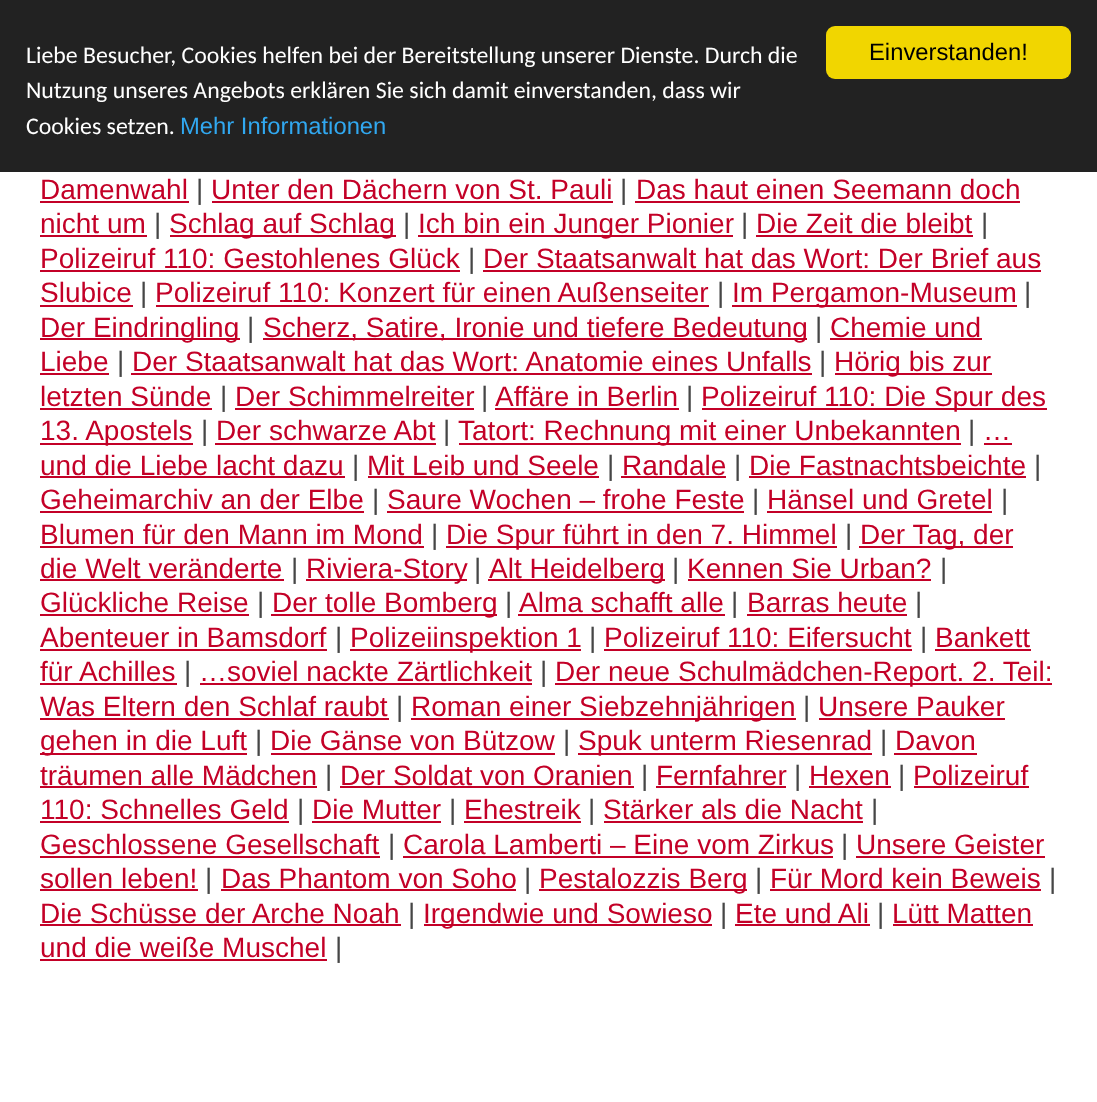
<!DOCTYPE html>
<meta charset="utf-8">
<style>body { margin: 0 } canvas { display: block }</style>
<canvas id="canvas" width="1097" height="1102"></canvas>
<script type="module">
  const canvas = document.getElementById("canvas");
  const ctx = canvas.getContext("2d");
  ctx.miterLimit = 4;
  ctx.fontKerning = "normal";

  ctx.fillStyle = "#ffffff";
  ctx.fillRect(0, 0, 1097, 1102);
  ctx.fillStyle = "#222222";
  ctx.fillRect(0, 0, 1097, 172);
  ctx.font = "23.8px Carlito";
  ctx.fillStyle = "#ffffff";
  ctx.fillText("Liebe Besucher, Cookies helfen bei der Bereitstellung unserer Dienste. Durch die", 26, 63);
  ctx.fillText("Nutzung unseres Angebots erklären Sie sich damit einverstanden, dass wir", 26, 98);
  ctx.fillText("Cookies setzen.", 26, 134);
  ctx.font = "23.8px Liberation Sans";
  ctx.fillStyle = "#31a8f0";
  ctx.fillText("Mehr Informationen", 180, 134);
  ctx.fillStyle = "#f1d600";
  ctx.beginPath();
  ctx.roundRect(826, 26, 245, 53, 9);
  ctx.fill();
  ctx.fillStyle = "#000000";
  ctx.fillText("Einverstanden!", 869, 60);
  ctx.font = "28px Liberation Sans";
  ctx.fillStyle = "#c30027";
  ctx.fillText("Damenwahl", 40, 199);
  ctx.fillRect(40, 201, 149, 2);
  ctx.fillStyle = "#464646";
  ctx.fillText("|", 196, 199);
  ctx.fillStyle = "#c30027";
  ctx.fillText("Unter den Dächern von St. Pauli", 211, 199);
  ctx.fillRect(212, 201, 401, 2);
  ctx.fillStyle = "#464646";
  ctx.fillText("|", 620, 199);
  ctx.fillStyle = "#c30027";
  ctx.fillText("Das haut einen Seemann doch", 636, 199);
  ctx.fillRect(635, 201, 385, 2);
  ctx.fillText("nicht um", 40, 233);
  ctx.fillRect(40, 235, 107, 2);
  ctx.fillStyle = "#464646";
  ctx.fillText("|", 154, 233);
  ctx.fillStyle = "#c30027";
  ctx.fillRect(170, 235, 226, 2);
  ctx.fillText("Schlag auf Schlag", 169, 233);
  ctx.fillStyle = "#464646";
  ctx.fillText("|", 403, 233);
  ctx.fillStyle = "#c30027";
  ctx.fillRect(418, 235, 315, 2);
  ctx.fillText("Ich bin ein Junger Pionier", 418, 233);
  ctx.fillStyle = "#464646";
  ctx.fillText("|", 741, 233);
  ctx.fillStyle = "#c30027";
  ctx.fillText("Die Zeit die bleibt", 756, 233);
  ctx.fillRect(756, 235, 217, 2);
  ctx.fillStyle = "#464646";
  ctx.fillText("|", 981, 233);
  ctx.fillStyle = "#c30027";
  ctx.fillText("Polizeiruf 110: Gestohlenes Glück", 40, 268);
  ctx.fillRect(40, 270, 420, 2);
  ctx.fillStyle = "#464646";
  ctx.fillText("|", 468, 268);
  ctx.fillStyle = "#c30027";
  ctx.fillText("Der Staatsanwalt hat das Wort: Der Brief aus", 483, 268);
  ctx.fillRect(483, 270, 558, 2);
  ctx.fillText("Slubice", 40, 302);
  ctx.fillRect(40, 305, 93, 2);
  ctx.fillStyle = "#464646";
  ctx.fillText("|", 140, 302);
  ctx.fillStyle = "#c30027";
  ctx.fillText("Polizeiruf 110: Konzert für einen Außenseiter", 155, 302);
  ctx.fillRect(156, 305, 553, 2);
  ctx.fillStyle = "#464646";
  ctx.fillText("|", 717, 302);
  ctx.fillStyle = "#c30027";
  ctx.fillRect(732, 305, 285, 2);
  ctx.fillText("Im Pergamon-Museum", 732, 302);
  ctx.fillStyle = "#464646";
  ctx.fillText("|", 1024, 302);
  ctx.fillStyle = "#c30027";
  ctx.fillRect(40, 338, 200, 2);
  ctx.fillText("Der Eindringling", 40, 337);
  ctx.fillStyle = "#464646";
  ctx.fillText("|", 247, 337);
  ctx.fillStyle = "#c30027";
  ctx.fillRect(263, 338, 544, 2);
  ctx.fillText("Scherz, Satire, Ironie und tiefere Bedeutung", 263, 337);
  ctx.fillStyle = "#464646";
  ctx.fillText("|", 815, 337);
  ctx.fillStyle = "#c30027";
  ctx.fillText("Chemie und", 830, 337);
  ctx.fillRect(830, 338, 152, 2);
  ctx.fillText("Liebe", 40, 371);
  ctx.fillRect(40, 373, 69, 2);
  ctx.fillStyle = "#464646";
  ctx.fillText("|", 117, 371);
  ctx.fillStyle = "#c30027";
  ctx.fillText("Der Staatsanwalt hat das Wort: Anatomie eines Unfalls", 132, 371);
  ctx.fillRect(131, 373, 681, 2);
  ctx.fillStyle = "#464646";
  ctx.fillText("|", 819, 371);
  ctx.fillStyle = "#c30027";
  ctx.fillRect(835, 373, 157, 2);
  ctx.fillText("Hörig bis zur", 834, 371);
  ctx.fillText("letzten Sünde", 40, 406);
  ctx.fillRect(40, 408, 172, 2);
  ctx.fillStyle = "#464646";
  ctx.fillText("|", 220, 406);
  ctx.fillStyle = "#c30027";
  ctx.fillText("Der Schimmelreiter", 235, 406);
  ctx.fillRect(235, 408, 239, 2);
  ctx.fillStyle = "#464646";
  ctx.fillText("|", 481, 406);
  ctx.fillStyle = "#c30027";
  ctx.fillText("Affäre in Berlin", 495, 406);
  ctx.fillRect(495, 408, 184, 2);
  ctx.fillStyle = "#464646";
  ctx.fillText("|", 686, 406);
  ctx.fillStyle = "#c30027";
  ctx.fillRect(702, 408, 345, 2);
  ctx.fillText("Polizeiruf 110: Die Spur des", 701, 406);
  ctx.fillRect(40, 443, 153, 2);
  ctx.fillText("13. Apostels", 40, 440);
  ctx.fillStyle = "#464646";
  ctx.fillText("|", 201, 440);
  ctx.fillStyle = "#c30027";
  ctx.fillText("Der schwarze Abt", 216, 440);
  ctx.fillRect(215, 443, 221, 2);
  ctx.fillStyle = "#464646";
  ctx.fillText("|", 443, 440);
  ctx.fillStyle = "#c30027";
  ctx.fillRect(459, 443, 502, 2);
  ctx.fillText("Tatort: Rechnung mit einer Unbekannten", 458, 440);
  ctx.fillStyle = "#464646";
  ctx.fillText("|", 968, 440);
  ctx.fillStyle = "#c30027";
  ctx.fillText("…", 983, 440);
  ctx.fillRect(984, 443, 28, 2);
  ctx.fillText("und die Liebe lacht dazu", 40, 475);
  ctx.fillRect(40, 476, 305, 2);
  ctx.fillStyle = "#464646";
  ctx.fillText("|", 352, 475);
  ctx.fillStyle = "#c30027";
  ctx.fillText("Mit Leib und Seele", 367, 475);
  ctx.fillRect(368, 476, 231, 2);
  ctx.fillStyle = "#464646";
  ctx.fillText("|", 607, 475);
  ctx.fillStyle = "#c30027";
  ctx.fillText("Randale", 622, 475);
  ctx.fillRect(621, 476, 105, 2);
  ctx.fillStyle = "#464646";
  ctx.fillText("|", 734, 475);
  ctx.fillStyle = "#c30027";
  ctx.fillText("Die Fastnachtsbeichte", 749, 475);
  ctx.fillRect(749, 476, 277, 2);
  ctx.fillStyle = "#464646";
  ctx.fillText("|", 1034, 475);
  ctx.fillStyle = "#c30027";
  ctx.fillText("Geheimarchiv an der Elbe", 40, 509);
  ctx.fillRect(40, 511, 324, 2);
  ctx.fillStyle = "#464646";
  ctx.fillText("|", 372, 509);
  ctx.fillStyle = "#c30027";
  ctx.fillText("Saure Wochen – frohe Feste", 387, 509);
  ctx.fillRect(387, 511, 357, 2);
  ctx.fillStyle = "#464646";
  ctx.fillText("|", 752, 509);
  ctx.fillStyle = "#c30027";
  ctx.fillText("Hänsel und Gretel", 767, 509);
  ctx.fillRect(767, 511, 225, 2);
  ctx.fillStyle = "#464646";
  ctx.fillText("|", 1001, 509);
  ctx.fillStyle = "#c30027";
  ctx.fillText("Blumen für den Mann im Mond", 40, 544);
  ctx.fillRect(40, 546, 384, 2);
  ctx.fillStyle = "#464646";
  ctx.fillText("|", 431, 544);
  ctx.fillStyle = "#c30027";
  ctx.fillRect(446, 546, 391, 2);
  ctx.fillText("Die Spur führt in den 7. Himmel", 446, 544);
  ctx.fillStyle = "#464646";
  ctx.fillText("|", 845, 544);
  ctx.fillStyle = "#c30027";
  ctx.fillRect(859, 546, 154, 2);
  ctx.fillText("Der Tag, der", 860, 544);
  ctx.fillText("die Welt veränderte", 40, 578);
  ctx.fillRect(40, 579, 244, 2);
  ctx.fillStyle = "#464646";
  ctx.fillText("|", 291, 578);
  ctx.fillStyle = "#c30027";
  ctx.fillRect(306, 579, 161, 2);
  ctx.fillText("Riviera-Story", 306, 578);
  ctx.fillStyle = "#464646";
  ctx.fillText("|", 474, 578);
  ctx.fillStyle = "#c30027";
  ctx.fillRect(488, 579, 177, 2);
  ctx.fillText("Alt Heidelberg", 489, 578);
  ctx.fillStyle = "#464646";
  ctx.fillText("|", 672, 578);
  ctx.fillStyle = "#c30027";
  ctx.fillText("Kennen Sie Urban?", 687, 578);
  ctx.fillRect(688, 579, 243, 2);
  ctx.fillStyle = "#464646";
  ctx.fillText("|", 940, 578);
  ctx.fillStyle = "#c30027";
  ctx.fillText("Glückliche Reise", 40, 612);
  ctx.fillRect(40, 614, 209, 2);
  ctx.fillStyle = "#464646";
  ctx.fillText("|", 257, 612);
  ctx.fillStyle = "#c30027";
  ctx.fillRect(271, 614, 226, 2);
  ctx.fillText("Der tolle Bomberg", 272, 612);
  ctx.fillStyle = "#464646";
  ctx.fillText("|", 505, 612);
  ctx.fillStyle = "#c30027";
  ctx.fillText("Alma schafft alle", 519, 612);
  ctx.fillRect(518, 614, 207, 2);
  ctx.fillStyle = "#464646";
  ctx.fillText("|", 731, 612);
  ctx.fillStyle = "#c30027";
  ctx.fillText("Barras heute", 747, 612);
  ctx.fillRect(747, 614, 160, 2);
  ctx.fillStyle = "#464646";
  ctx.fillText("|", 915, 612);
  ctx.fillStyle = "#c30027";
  ctx.fillText("Abenteuer in Bamsdorf", 40, 647);
  ctx.fillRect(40, 649, 287, 2);
  ctx.fillStyle = "#464646";
  ctx.fillText("|", 335, 647);
  ctx.fillStyle = "#c30027";
  ctx.fillRect(350, 649, 231, 2);
  ctx.fillText("Polizeiinspektion 1", 350, 647);
  ctx.fillStyle = "#464646";
  ctx.fillText("|", 589, 647);
  ctx.fillStyle = "#c30027";
  ctx.fillText("Polizeiruf 110: Eifersucht", 604, 647);
  ctx.fillRect(604, 649, 308, 2);
  ctx.fillStyle = "#464646";
  ctx.fillText("|", 920, 647);
  ctx.fillStyle = "#c30027";
  ctx.fillText("Bankett", 935, 647);
  ctx.fillRect(935, 649, 96, 2);
  ctx.fillText("für Achilles", 40, 681);
  ctx.fillRect(40, 683, 137, 2);
  ctx.fillStyle = "#464646";
  ctx.fillText("|", 184, 681);
  ctx.fillStyle = "#c30027";
  ctx.fillText("…soviel nackte Zärtlichkeit", 199, 681);
  ctx.fillRect(200, 683, 332, 2);
  ctx.fillStyle = "#464646";
  ctx.fillText("|", 540, 681);
  ctx.fillStyle = "#c30027";
  ctx.fillRect(555, 683, 497, 2);
  ctx.fillText("Der neue Schulmädchen-Report. 2. Teil:", 555, 681);
  ctx.fillText("Was Eltern den Schlaf raubt", 40, 716);
  ctx.fillRect(40, 718, 349, 2);
  ctx.fillStyle = "#464646";
  ctx.fillText("|", 396, 716);
  ctx.fillStyle = "#c30027";
  ctx.fillRect(411, 718, 385, 2);
  ctx.fillText("Roman einer Siebzehnjährigen", 411, 716);
  ctx.fillStyle = "#464646";
  ctx.fillText("|", 803, 716);
  ctx.fillStyle = "#c30027";
  ctx.fillText("Unsere Pauker", 818, 716);
  ctx.fillRect(819, 718, 186, 2);
  ctx.fillRect(40, 753, 207, 2);
  ctx.fillText("gehen in die Luft", 40, 750);
  ctx.fillStyle = "#464646";
  ctx.fillText("|", 255, 750);
  ctx.fillStyle = "#c30027";
  ctx.fillText("Die Gänse von Bützow", 270, 750);
  ctx.fillRect(271, 753, 284, 2);
  ctx.fillStyle = "#464646";
  ctx.fillText("|", 563, 750);
  ctx.fillStyle = "#c30027";
  ctx.fillRect(578, 753, 294, 2);
  ctx.fillText("Spuk unterm Riesenrad", 578, 750);
  ctx.fillStyle = "#464646";
  ctx.fillText("|", 880, 750);
  ctx.fillStyle = "#c30027";
  ctx.fillText("Davon", 895, 750);
  ctx.fillRect(894, 753, 83, 2);
  ctx.fillText("träumen alle Mädchen", 40, 785);
  ctx.fillRect(40, 786, 277, 2);
  ctx.fillStyle = "#464646";
  ctx.fillText("|", 325, 785);
  ctx.fillStyle = "#c30027";
  ctx.fillText("Der Soldat von Oranien", 340, 785);
  ctx.fillRect(340, 786, 294, 2);
  ctx.fillStyle = "#464646";
  ctx.fillText("|", 641, 785);
  ctx.fillStyle = "#c30027";
  ctx.fillText("Fernfahrer", 656, 785);
  ctx.fillRect(656, 786, 130, 2);
  ctx.fillStyle = "#464646";
  ctx.fillText("|", 794, 785);
  ctx.fillStyle = "#c30027";
  ctx.fillText("Hexen", 809, 785);
  ctx.fillRect(809, 786, 82, 2);
  ctx.fillStyle = "#464646";
  ctx.fillText("|", 898, 785);
  ctx.fillStyle = "#c30027";
  ctx.fillText("Polizeiruf", 913, 785);
  ctx.fillRect(914, 786, 115, 2);
  ctx.fillText("110: Schnelles Geld", 40, 819);
  ctx.fillRect(40, 821, 249, 2);
  ctx.fillStyle = "#464646";
  ctx.fillText("|", 297, 819);
  ctx.fillStyle = "#c30027";
  ctx.fillText("Die Mutter", 312, 819);
  ctx.fillRect(312, 821, 129, 2);
  ctx.fillStyle = "#464646";
  ctx.fillText("|", 449, 819);
  ctx.fillStyle = "#c30027";
  ctx.fillText("Ehestreik", 464, 819);
  ctx.fillRect(464, 821, 117, 2);
  ctx.fillStyle = "#464646";
  ctx.fillText("|", 588, 819);
  ctx.fillStyle = "#c30027";
  ctx.fillText("Stärker als die Nacht", 603, 819);
  ctx.fillRect(604, 821, 259, 2);
  ctx.fillStyle = "#464646";
  ctx.fillText("|", 871, 819);
  ctx.fillStyle = "#c30027";
  ctx.fillText("Geschlossene Gesellschaft", 40, 854);
  ctx.fillRect(40, 856, 340, 2);
  ctx.fillStyle = "#464646";
  ctx.fillText("|", 388, 854);
  ctx.fillStyle = "#c30027";
  ctx.fillText("Carola Lamberti – Eine vom Zirkus", 403, 854);
  ctx.fillRect(403, 856, 430, 2);
  ctx.fillStyle = "#464646";
  ctx.fillText("|", 841, 854);
  ctx.fillStyle = "#c30027";
  ctx.fillText("Unsere Geister", 856, 854);
  ctx.fillRect(856, 856, 189, 2);
  ctx.fillText("sollen leben!", 40, 888);
  ctx.fillRect(40, 889, 158, 2);
  ctx.fillStyle = "#464646";
  ctx.fillText("|", 205, 888);
  ctx.fillStyle = "#c30027";
  ctx.fillText("Das Phantom von Soho", 221, 888);
  ctx.fillRect(221, 889, 295, 2);
  ctx.fillStyle = "#464646";
  ctx.fillText("|", 524, 888);
  ctx.fillStyle = "#c30027";
  ctx.fillRect(539, 889, 208, 2);
  ctx.fillText("Pestalozzis Berg", 539, 888);
  ctx.fillStyle = "#464646";
  ctx.fillText("|", 755, 888);
  ctx.fillStyle = "#c30027";
  ctx.fillText("Für Mord kein Beweis", 770, 888);
  ctx.fillRect(770, 889, 271, 2);
  ctx.fillStyle = "#464646";
  ctx.fillText("|", 1049, 888);
  ctx.fillStyle = "#c30027";
  ctx.fillText("Die Schüsse der Arche Noah", 40, 923);
  ctx.fillRect(40, 924, 361, 2);
  ctx.fillStyle = "#464646";
  ctx.fillText("|", 408, 923);
  ctx.fillStyle = "#c30027";
  ctx.fillRect(424, 924, 288, 2);
  ctx.fillText("Irgendwie und Sowieso", 423, 923);
  ctx.fillStyle = "#464646";
  ctx.fillText("|", 720, 923);
  ctx.fillStyle = "#c30027";
  ctx.fillText("Ete und Ali", 735, 923);
  ctx.fillRect(735, 924, 135, 2);
  ctx.fillStyle = "#464646";
  ctx.fillText("|", 877, 923);
  ctx.fillStyle = "#c30027";
  ctx.fillText("Lütt Matten", 892, 923);
  ctx.fillRect(893, 924, 140, 2);
  ctx.fillText("und die weiße Muschel", 40, 957);
  ctx.fillRect(40, 959, 287, 2);
  ctx.fillStyle = "#464646";
  ctx.fillText("|", 335, 957);
</script>
